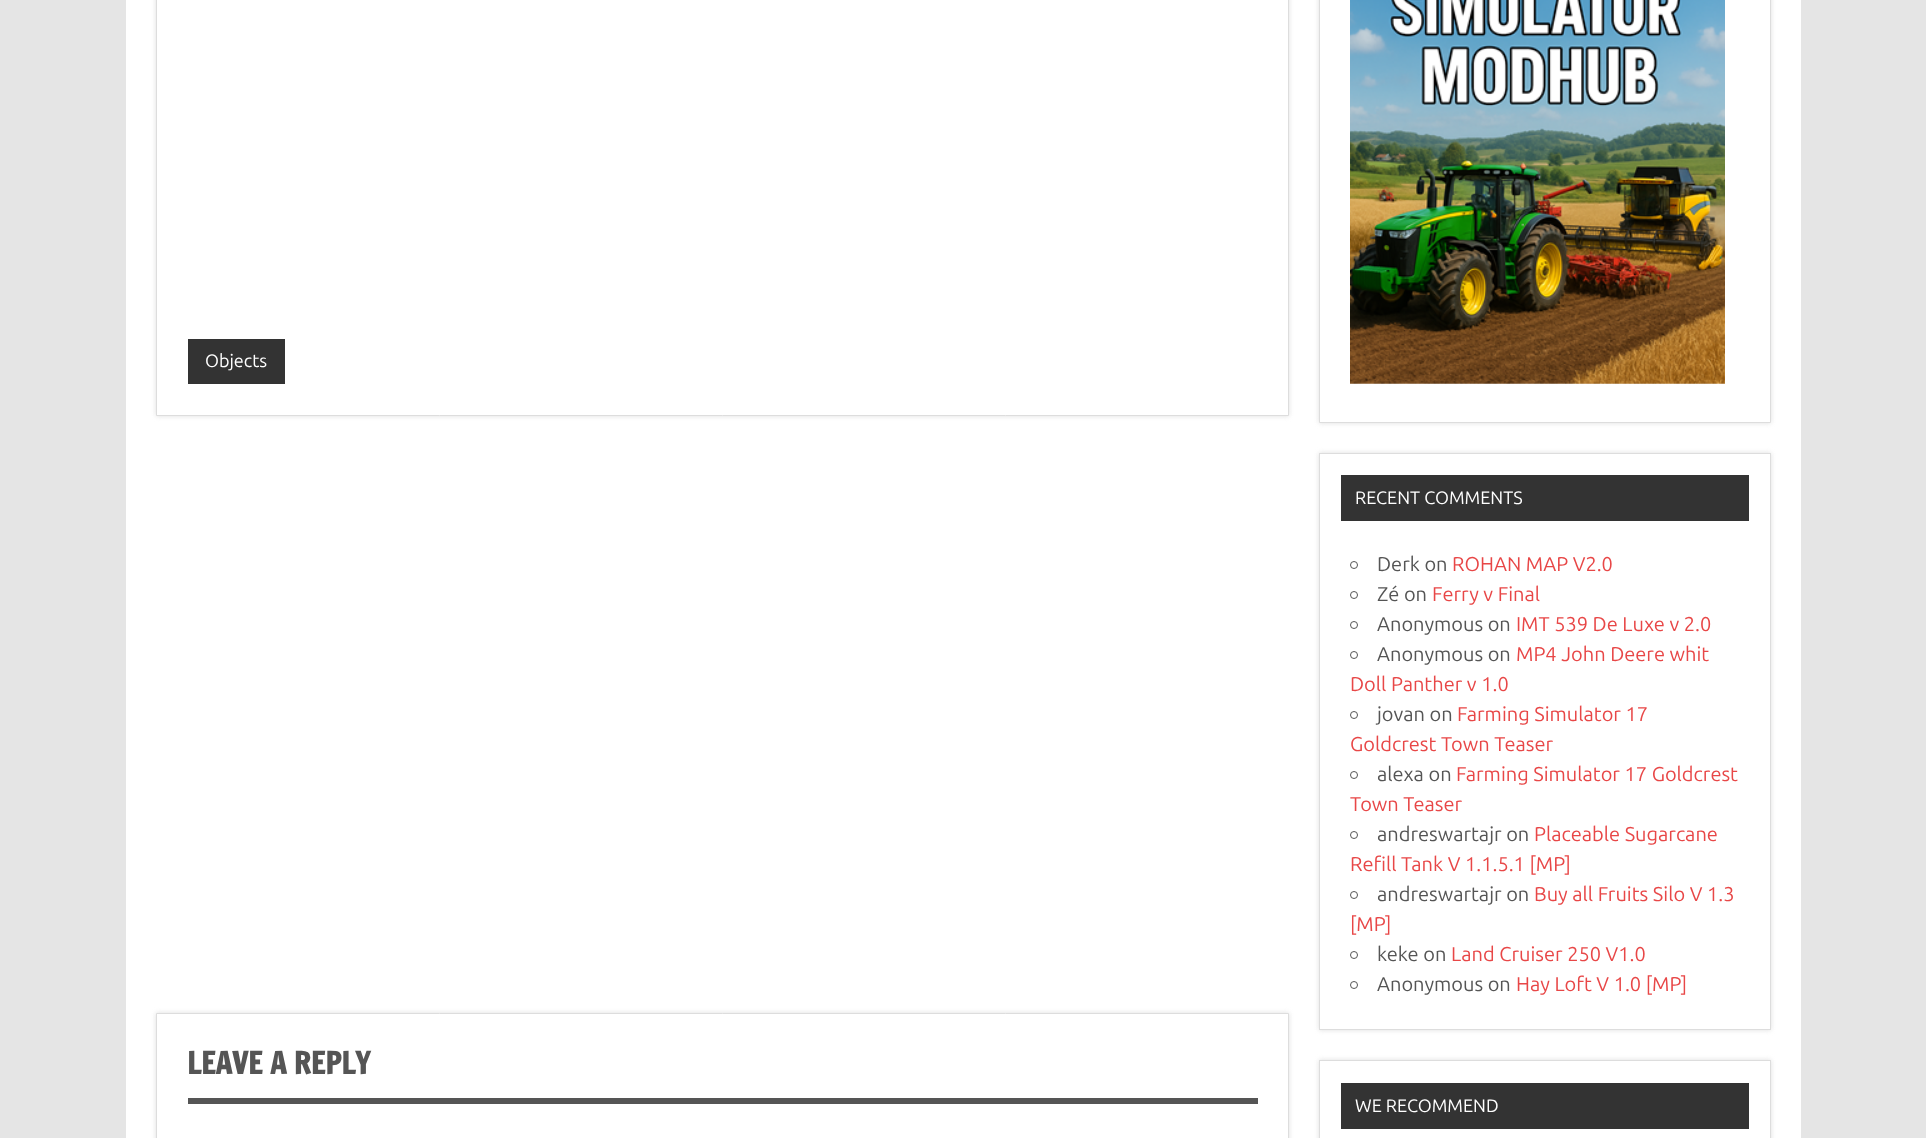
<!DOCTYPE html>
<meta charset="utf-8">
<style>body { margin: 0 } canvas { display: block }</style>
<canvas id="canvas" width="1926" height="1138"></canvas>
<script type="module">
  const canvas = document.getElementById("canvas");
  const ctx = canvas.getContext("2d");
  ctx.miterLimit = 4;
  ctx.fontKerning = "normal";
  async function loadImage(src) {
    const img = new Image();
    img.src = src;
    await img.decode();
    return img;
  }

  ctx.fillStyle = "#e5e5e5";
  ctx.fillRect(0, 0, 1926, 1138);
  ctx.fillStyle = "#ffffff";
  ctx.fillRect(126, 0, 1675, 1138);
  ctx.fillStyle = "#dddddd";
  ctx.filter = "blur(2.5px)";
  ctx.beginPath();
  ctx.rect(156, -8, 1133, 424);
  ctx.fill();
  ctx.filter = "none";
  ctx.fillStyle = "#ffffff";
  ctx.beginPath();
  ctx.rect(156.5, -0.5, 1132, 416);
  ctx.fill();
  ctx.strokeStyle = "#dddddd";
  ctx.stroke();
  ctx.fillStyle = "#333333";
  ctx.fillRect(188, 339, 97, 45);
  ctx.font = "18px Ubuntu";
  ctx.fillStyle = "#ffffff";
  ctx.fillText("Objects", 205, 367);
  ctx.fillStyle = "#dddddd";
  ctx.filter = "blur(2.5px)";
  ctx.beginPath();
  ctx.rect(156, 1013, 1133, 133);
  ctx.fill();
  ctx.filter = "none";
  ctx.fillStyle = "#ffffff";
  ctx.beginPath();
  ctx.rect(156.5, 1013.5, 1132, 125);
  ctx.fill();
  ctx.stroke();
  ctx.fillStyle = "#555555";
  ctx.fillRect(188, 1098, 1070, 6);
  ctx.font = "bold 30px Francois One";
  ctx.fillText("LEAVE A REPLY", 187, 1074);
  ctx.fillStyle = "#dddddd";
  ctx.filter = "blur(2.5px)";
  ctx.beginPath();
  ctx.rect(1319, -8, 452, 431);
  ctx.fill();
  ctx.filter = "none";
  ctx.fillStyle = "#ffffff";
  ctx.beginPath();
  ctx.rect(1319.5, -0.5, 451, 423);
  ctx.fill();
  ctx.stroke();
  ctx.drawImage(await loadImage("img1.png"), 1350, 0, 375, 384);
  ctx.save();
  ctx.beginPath();
  ctx.moveTo(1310, 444);
  ctx.lineTo(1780, 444);
  ctx.lineTo(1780, 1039);
  ctx.lineTo(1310, 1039);
  ctx.closePath();
  ctx.moveTo(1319, 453);
  ctx.lineTo(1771, 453);
  ctx.lineTo(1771, 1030);
  ctx.lineTo(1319, 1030);
  ctx.closePath();
  ctx.clip("evenodd");
  ctx.fillStyle = "#dddddd";
  ctx.filter = "blur(2.5px)";
  ctx.beginPath();
  ctx.rect(1319, 453, 452, 577);
  ctx.fill();
  ctx.filter = "none";
  ctx.restore();
  ctx.strokeRect(1319.5, 453.5, 451, 576);
  ctx.fillStyle = "#333333";
  ctx.fillRect(1341, 475, 408, 46);
  ctx.font = "18px Ubuntu";
  ctx.fillStyle = "#ffffff";
  ctx.fillText("RECENT COMMENTS", 1355, 504);
  ctx.beginPath();
  ctx.arc(1354, 565, 3.5, 0, Math.PI * 2);
  ctx.strokeStyle = "#555555";
  ctx.stroke();
  ctx.font = "20px Ubuntu";
  ctx.fillStyle = "#555555";
  ctx.fillText("Derk on", 1377, 571);
  ctx.fillStyle = "#e84747";
  ctx.fillText("ROHAN MAP V2.0", 1452, 571);
  ctx.beginPath();
  ctx.arc(1354, 595, 3.5, 0, Math.PI * 2);
  ctx.stroke();
  ctx.fillStyle = "#555555";
  ctx.fillText("Zé on", 1377, 601);
  ctx.fillStyle = "#e84747";
  ctx.fillText("Ferry v Final", 1432, 601);
  ctx.beginPath();
  ctx.arc(1354, 625, 3.5, 0, Math.PI * 2);
  ctx.stroke();
  ctx.fillStyle = "#555555";
  ctx.fillText("Anonymous on", 1377, 631);
  ctx.fillStyle = "#e84747";
  ctx.fillText("IMT 539 De Luxe v 2.0", 1516, 631);
  ctx.beginPath();
  ctx.arc(1354, 655, 3.5, 0, Math.PI * 2);
  ctx.stroke();
  ctx.fillStyle = "#555555";
  ctx.fillText("Anonymous on", 1377, 661);
  ctx.fillStyle = "#e84747";
  ctx.fillText("MP4 John Deere whit", 1516, 661);
  ctx.fillText("Doll Panther v 1.0", 1350, 691);
  ctx.beginPath();
  ctx.arc(1354, 715, 3.5, 0, Math.PI * 2);
  ctx.stroke();
  ctx.fillStyle = "#555555";
  ctx.fillText("jovan on", 1377, 721);
  ctx.fillStyle = "#e84747";
  ctx.fillText("Farming Simulator 17", 1457, 721);
  ctx.fillText("Goldcrest Town Teaser", 1350, 751);
  ctx.beginPath();
  ctx.arc(1354, 775, 3.5, 0, Math.PI * 2);
  ctx.stroke();
  ctx.fillStyle = "#555555";
  ctx.fillText("alexa on", 1377, 781);
  ctx.fillStyle = "#e84747";
  ctx.fillText("Farming Simulator 17 Goldcrest", 1456, 781);
  ctx.fillText("Town Teaser", 1350, 811);
  ctx.beginPath();
  ctx.arc(1354, 835, 3.5, 0, Math.PI * 2);
  ctx.stroke();
  ctx.fillStyle = "#555555";
  ctx.fillText("andreswartajr on", 1377, 841);
  ctx.fillStyle = "#e84747";
  ctx.fillText("Placeable Sugarcane", 1534, 841);
  ctx.fillText("Refill Tank V 1.1.5.1 [MP]", 1350, 871);
  ctx.beginPath();
  ctx.arc(1354, 895, 3.5, 0, Math.PI * 2);
  ctx.stroke();
  ctx.fillStyle = "#555555";
  ctx.fillText("andreswartajr on", 1377, 901);
  ctx.fillStyle = "#e84747";
  ctx.fillText("Buy all Fruits Silo V 1.3", 1534, 901);
  ctx.fillText("[MP]", 1350, 931);
  ctx.beginPath();
  ctx.arc(1354, 955, 3.5, 0, Math.PI * 2);
  ctx.stroke();
  ctx.fillStyle = "#555555";
  ctx.fillText("keke on", 1377, 961);
  ctx.fillStyle = "#e84747";
  ctx.fillText("Land Cruiser 250 V1.0", 1451, 961);
  ctx.beginPath();
  ctx.arc(1354, 985, 3.5, 0, Math.PI * 2);
  ctx.stroke();
  ctx.fillStyle = "#555555";
  ctx.fillText("Anonymous on", 1377, 991);
  ctx.fillStyle = "#e84747";
  ctx.fillText("Hay Loft V 1.0 [MP]", 1516, 991);
  ctx.save();
  ctx.beginPath();
  ctx.moveTo(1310, 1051);
  ctx.lineTo(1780, 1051);
  ctx.lineTo(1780, 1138);
  ctx.lineTo(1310, 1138);
  ctx.closePath();
  ctx.moveTo(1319, 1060);
  ctx.lineTo(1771, 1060);
  ctx.lineTo(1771, 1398);
  ctx.lineTo(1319, 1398);
  ctx.closePath();
  ctx.clip("evenodd");
  ctx.fillStyle = "#dddddd";
  ctx.filter = "blur(2.5px)";
  ctx.beginPath();
  ctx.rect(1319, 1060, 452, 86);
  ctx.fill();
  ctx.filter = "none";
  ctx.restore();
  ctx.strokeStyle = "#dddddd";
  ctx.strokeRect(1319.5, 1060.5, 451, 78);
  ctx.fillStyle = "#333333";
  ctx.fillRect(1341, 1083, 408, 46);
  ctx.font = "18px Ubuntu";
  ctx.fillStyle = "#ffffff";
  ctx.fillText("WE RECOMMEND", 1355, 1112);
</script>
